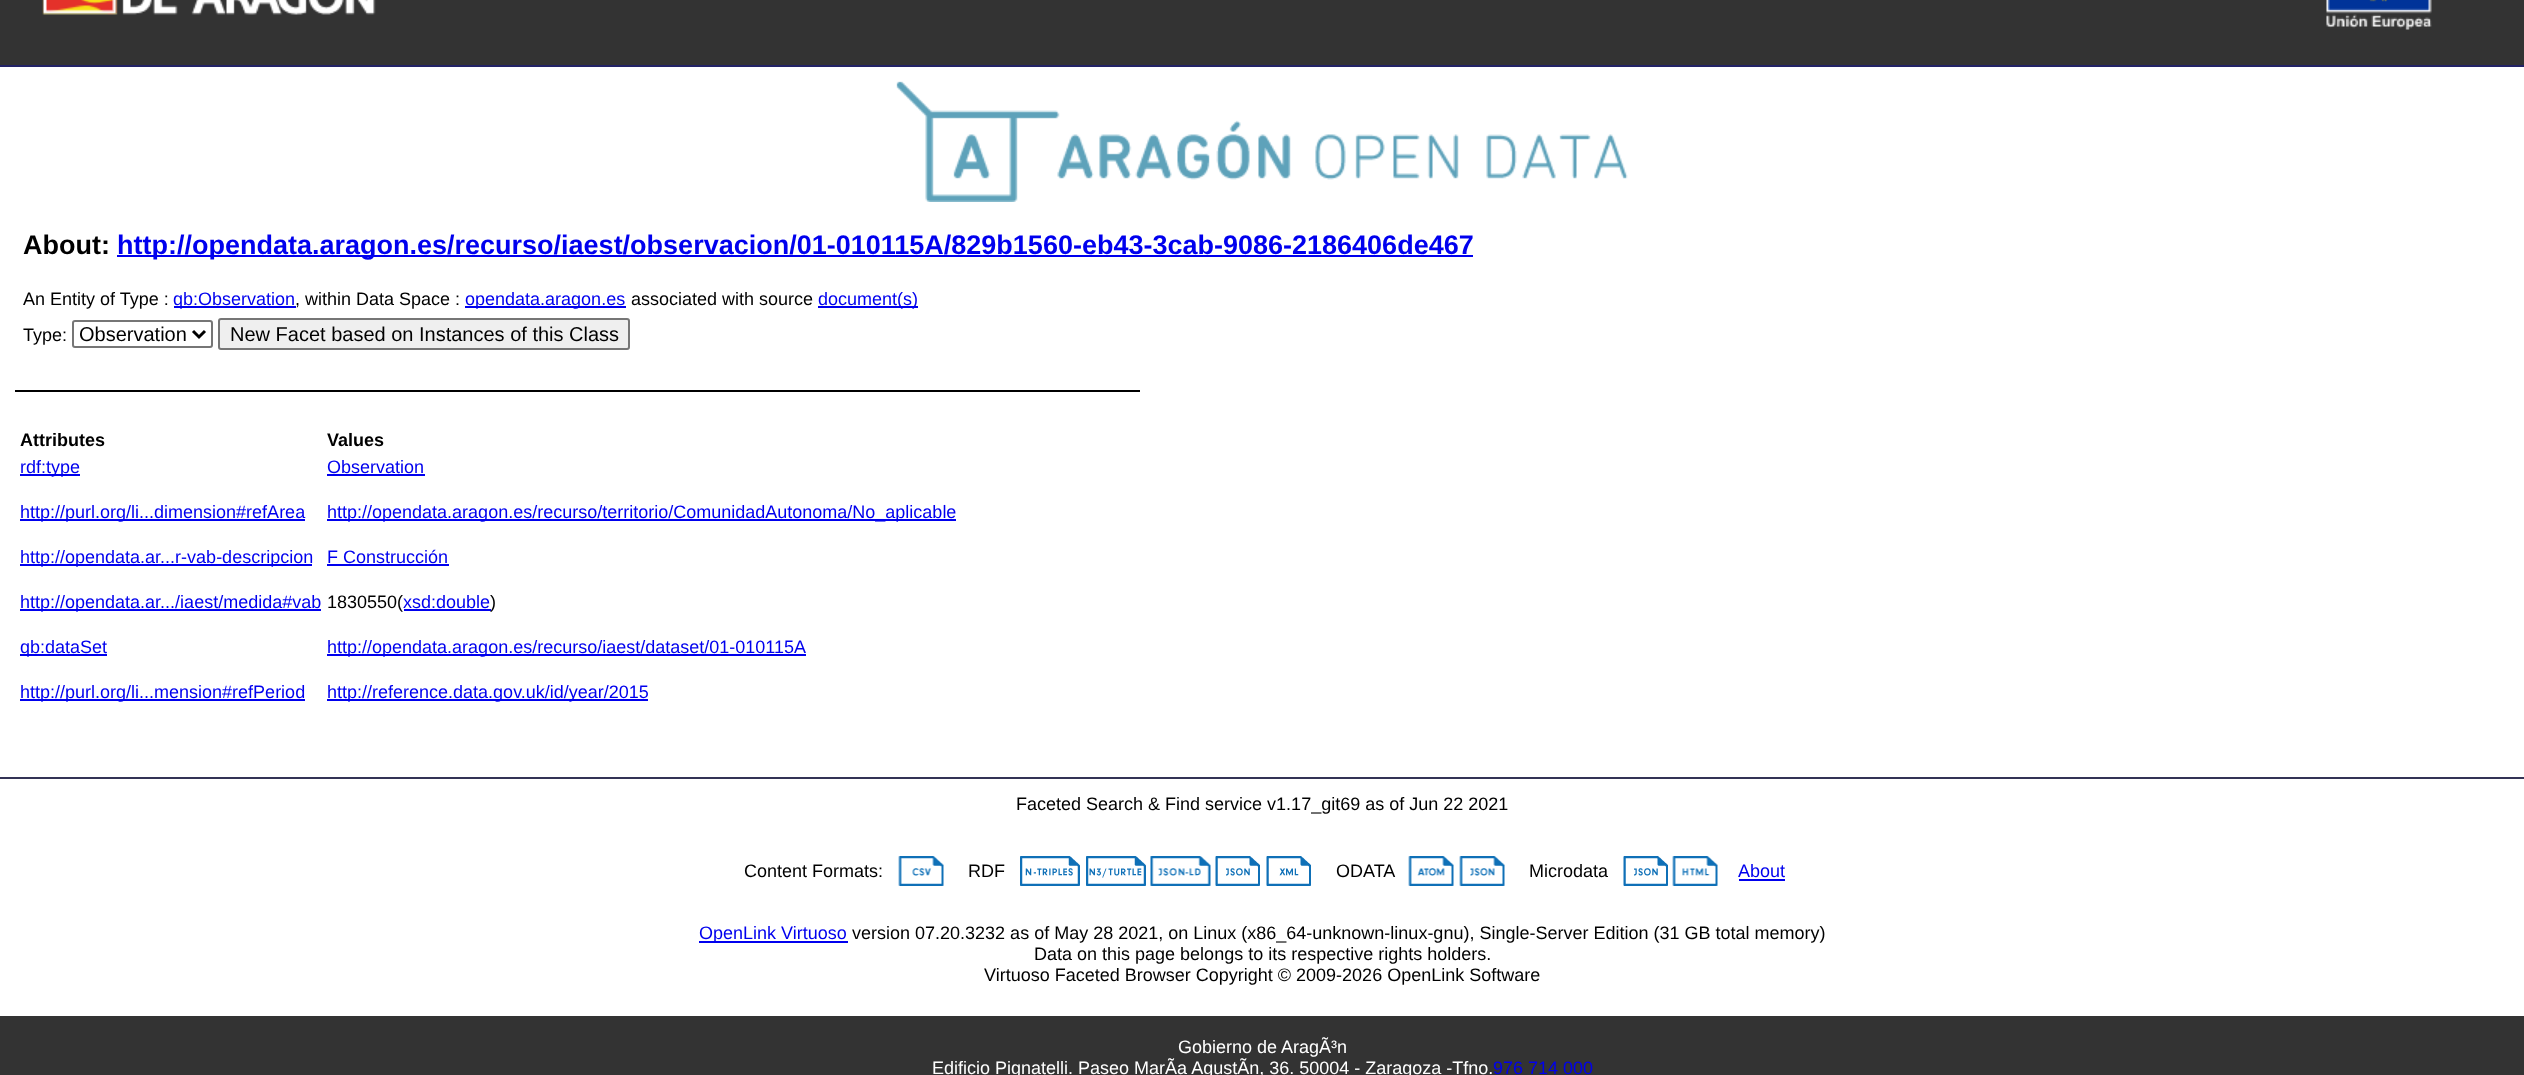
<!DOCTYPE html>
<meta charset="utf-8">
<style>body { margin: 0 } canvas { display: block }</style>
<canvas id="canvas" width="2524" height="1075"></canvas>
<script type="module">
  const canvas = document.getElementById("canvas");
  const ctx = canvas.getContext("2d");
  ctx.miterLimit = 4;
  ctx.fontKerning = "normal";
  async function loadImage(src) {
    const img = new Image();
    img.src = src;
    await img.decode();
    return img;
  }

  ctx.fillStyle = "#ffffff";
  ctx.fillRect(0, 0, 2524, 1075);
  ctx.fillStyle = "#333333";
  ctx.fillRect(0, 0, 2524, 65);
  ctx.fillStyle = "#222266";
  ctx.fillRect(0, 65, 2524, 2);
  ctx.drawImage(await loadImage("img1.png"), 42, 0, 334, 15);
  ctx.drawImage(await loadImage("img2.png"), 2326, 0, 106, 30);
  ctx.drawImage(await loadImage("img3.png"), 896, 81, 732, 121);
  ctx.font = "bold 27px Liberation Sans";
  ctx.fillStyle = "#000000";
  ctx.fillText("About:", 23, 254);
  ctx.fillStyle = "#0000ee";
  ctx.fillRect(117, 255, 1356, 2);
  ctx.fillText("http://opendata.aragon.es/recurso/iaest/observacion/01-010115A/829b1560-eb43-3cab-9086-2186406de467", 117, 254);
  ctx.font = "18px Liberation Sans";
  ctx.fillStyle = "#000000";
  ctx.fillText("An Entity of Type :", 23, 305);
  ctx.fillStyle = "#0000ee";
  ctx.fillRect(174, 306, 122, 2);
  ctx.fillText("qb:Observation", 173, 305);
  ctx.fillStyle = "#000000";
  ctx.fillText(", within Data Space :", 295, 305);
  ctx.fillStyle = "#0000ee";
  ctx.fillRect(465, 306, 161, 2);
  ctx.fillText("opendata.aragon.es", 465, 305);
  ctx.fillStyle = "#000000";
  ctx.fillText("associated with source", 631, 305);
  ctx.fillStyle = "#0000ee";
  ctx.fillRect(818, 306, 100, 2);
  ctx.fillText("document(s)", 818, 305);
  ctx.fillStyle = "#000000";
  ctx.fillText("Type:", 23, 341);
  ctx.beginPath();
  ctx.roundRect(73, 321, 139, 26, 2);
  ctx.strokeStyle = "#767676";
  ctx.lineWidth = 2;
  ctx.stroke();
  ctx.beginPath();
  ctx.moveTo(193, 331);
  ctx.lineTo(199, 337);
  ctx.lineTo(205, 331);
  ctx.strokeStyle = "#000000";
  ctx.lineWidth = 3;
  ctx.stroke();
  ctx.font = "20px Liberation Sans";
  ctx.fillText("Observation", 79, 341);
  ctx.fillStyle = "#efefef";
  ctx.beginPath();
  ctx.roundRect(219, 319, 410, 30, 2);
  ctx.fill();
  ctx.strokeStyle = "#767676";
  ctx.lineWidth = 2;
  ctx.stroke();
  ctx.fillStyle = "#000000";
  ctx.fillText("New Facet based on Instances of this Class", 230, 341);
  ctx.fillRect(15, 390, 1125, 2);
  ctx.font = "bold 18px Liberation Sans";
  ctx.fillText("Attributes", 20, 446);
  ctx.fillText("Values", 327, 446);
  ctx.fillStyle = "#0000ee";
  ctx.fillRect(20, 474, 60, 2);
  ctx.font = "18px Liberation Sans";
  ctx.fillText("rdf:type", 20, 473);
  ctx.fillText("Observation", 327, 473);
  ctx.fillRect(327, 474, 98, 2);
  ctx.fillRect(20, 519, 285, 2);
  ctx.fillText("http://purl.org/li...dimension#refArea", 20, 518);
  ctx.fillRect(327, 519, 629, 2);
  ctx.fillText("http://opendata.aragon.es/recurso/territorio/ComunidadAutonoma/No_aplicable", 327, 518);
  ctx.fillRect(20, 564, 292, 2);
  ctx.fillText("http://opendata.ar...r-vab-descripcion", 20, 563);
  ctx.fillText("F Construcción", 327, 563);
  ctx.fillRect(327, 564, 122, 2);
  ctx.fillRect(20, 609, 301, 2);
  ctx.fillText("http://opendata.ar.../iaest/medida#vab", 20, 608);
  ctx.fillStyle = "#000000";
  ctx.fillText("1830550(", 327, 608);
  ctx.fillStyle = "#0000ee";
  ctx.fillText("xsd:double", 403, 608);
  ctx.fillRect(404, 609, 87, 2);
  ctx.fillStyle = "#000000";
  ctx.fillText(")", 490, 608);
  ctx.fillStyle = "#0000ee";
  ctx.fillRect(20, 654, 87, 2);
  ctx.fillText("qb:dataSet", 20, 653);
  ctx.fillRect(327, 654, 479, 2);
  ctx.fillText("http://opendata.aragon.es/recurso/iaest/dataset/01-010115A", 327, 653);
  ctx.fillRect(20, 699, 285, 2);
  ctx.fillText("http://purl.org/li...mension#refPeriod", 20, 698);
  ctx.fillRect(327, 699, 321, 2);
  ctx.fillText("http://reference.data.gov.uk/id/year/2015", 327, 698);
  ctx.fillStyle = "#333355";
  ctx.fillRect(0, 777, 2524, 2);
  ctx.fillStyle = "#000000";
  ctx.fillText("Faceted Search & Find service v1.17_git69 as of Jun 22 2021", 1016, 810);
  ctx.fillText("Content Formats:", 744, 877);
  ctx.drawImage(await loadImage("img4.png"), 898, 856, 46, 30);
  ctx.fillText("RDF", 968, 877);
  ctx.drawImage(await loadImage("img5.png"), 1020, 856, 60, 30);
  ctx.drawImage(await loadImage("img6.png"), 1086, 856, 60, 30);
  ctx.drawImage(await loadImage("img7.png"), 1150, 856, 61, 30);
  ctx.drawImage(await loadImage("img8.png"), 1215, 856, 45, 30);
  ctx.drawImage(await loadImage("img9.png"), 1266, 856, 45, 30);
  ctx.fillText("ODATA", 1336, 877);
  ctx.drawImage(await loadImage("img10.png"), 1408, 856, 46, 30);
  ctx.drawImage(await loadImage("img11.png"), 1459, 856, 46, 30);
  ctx.fillText("Microdata", 1529, 877);
  ctx.drawImage(await loadImage("img8.png"), 1623, 856, 45, 30);
  ctx.drawImage(await loadImage("img12.png"), 1672, 856, 46, 30);
  ctx.fillStyle = "#0000ee";
  ctx.fillText("About", 1738, 877);
  ctx.fillRect(1739, 879, 46, 2);
  ctx.fillRect(699, 941, 149, 2);
  ctx.fillText("OpenLink Virtuoso", 699, 939);
  ctx.fillStyle = "#000000";
  ctx.fillText("version 07.20.3232 as of May 28 2021, on Linux (x86_64-unknown-linux-gnu), Single-Server Edition (31 GB total memory)", 852, 939);
  ctx.fillText("Data on this page belongs to its respective rights holders.", 1034, 960);
  ctx.fillText("Virtuoso Faceted Browser Copyright © 2009-2026 OpenLink Software", 984, 981);
  ctx.fillStyle = "#333333";
  ctx.fillRect(0, 1016, 2524, 59);
  ctx.fillStyle = "#ffffff";
  ctx.fillText("Gobierno de AragÃ³n", 1178, 1053);
  ctx.fillText("Edificio Pignatelli. Paseo MarÃa AgustÃn, 36. 50004 - Zaragoza -Tfno.", 932, 1074);
  ctx.fillStyle = "#0000ee";
  ctx.fillText("976 714 000", 1493, 1074);
</script>
